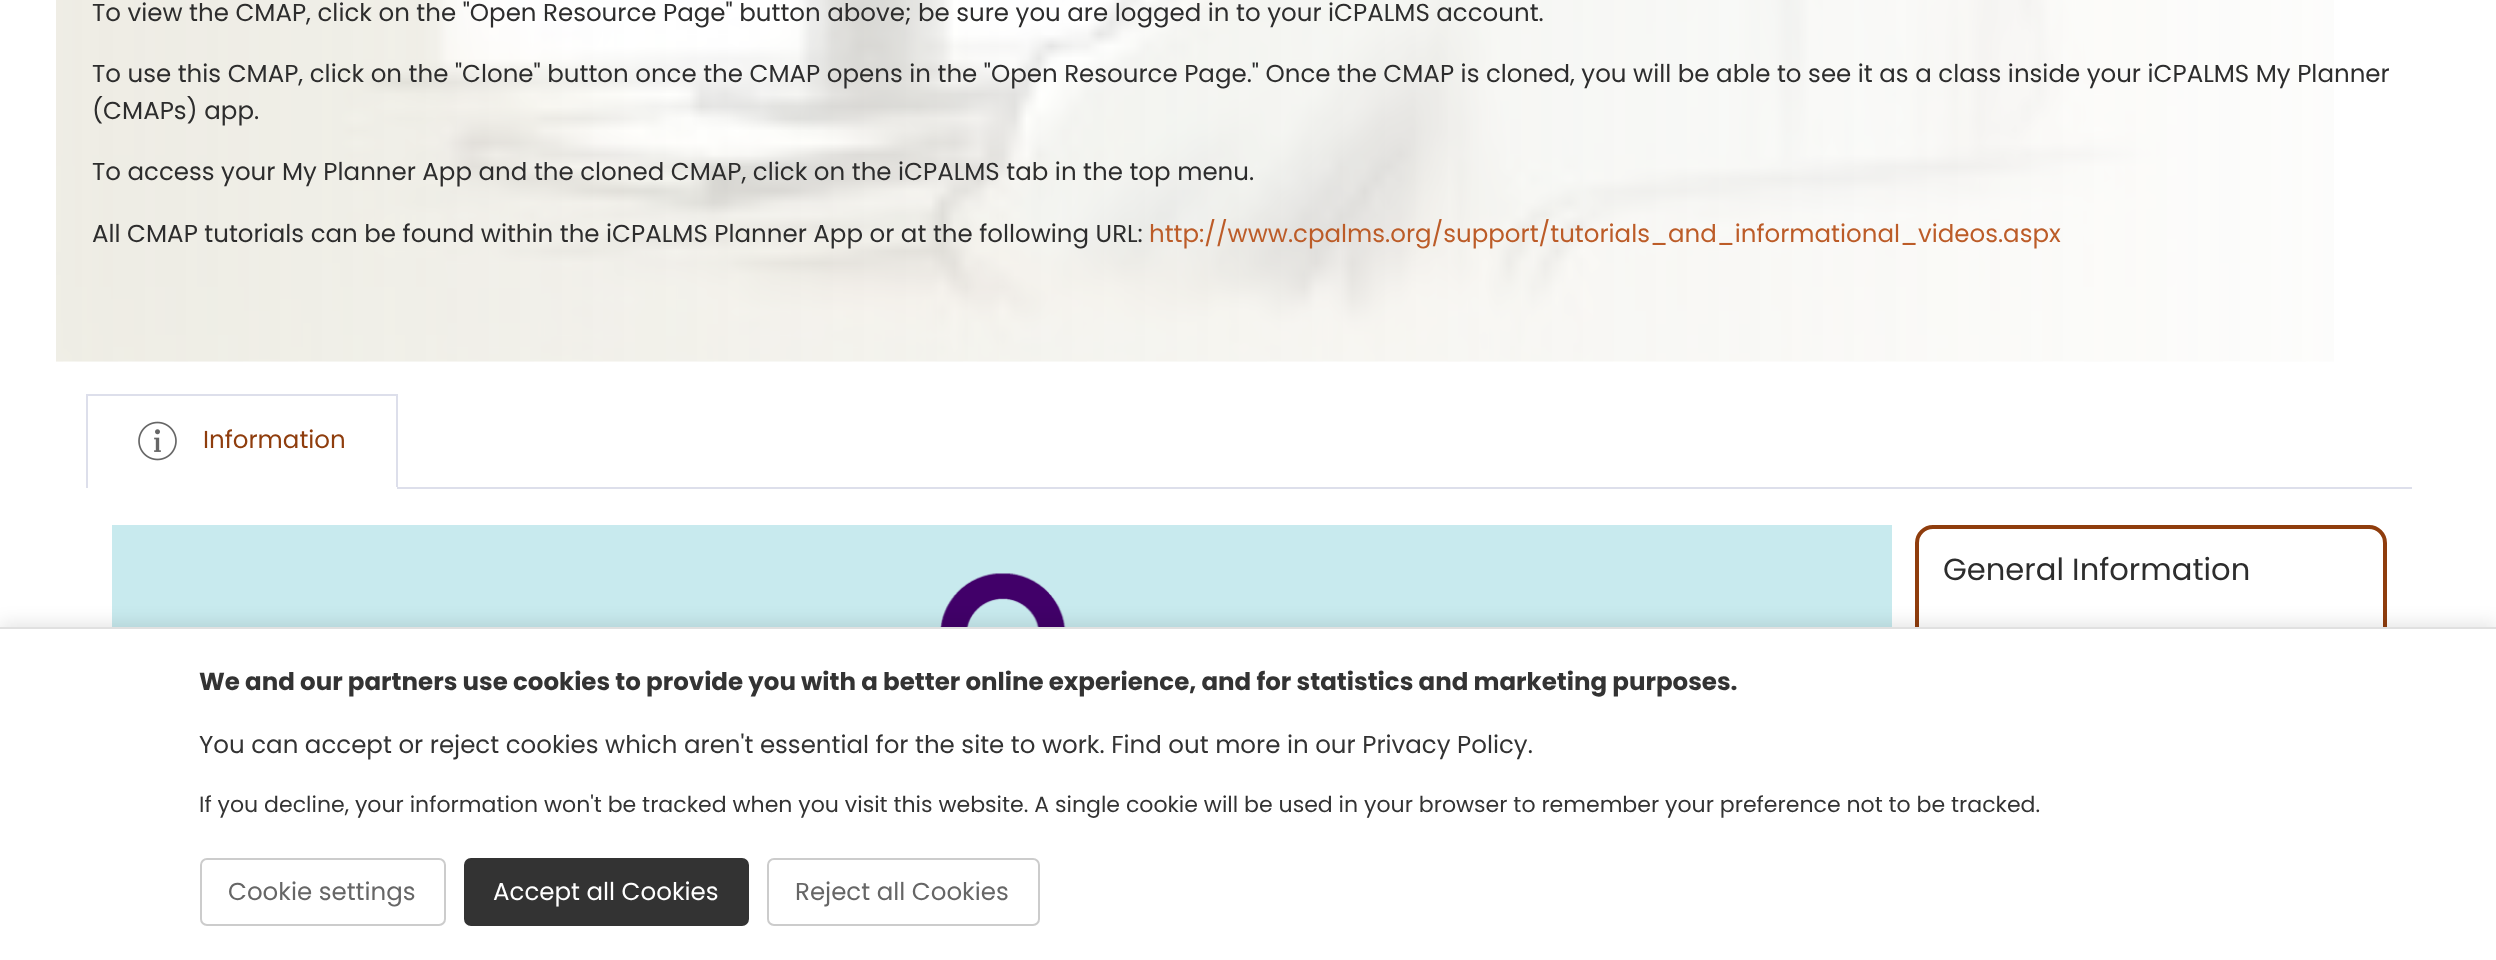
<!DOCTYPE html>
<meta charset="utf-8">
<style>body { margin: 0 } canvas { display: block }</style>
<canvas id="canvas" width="2496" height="960"></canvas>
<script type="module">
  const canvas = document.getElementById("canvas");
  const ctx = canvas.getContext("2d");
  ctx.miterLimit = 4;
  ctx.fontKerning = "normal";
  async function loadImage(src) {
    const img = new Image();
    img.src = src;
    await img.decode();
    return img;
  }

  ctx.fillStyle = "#ffffff";
  ctx.fillRect(0, 0, 2496, 960);
  ctx.drawImage(await loadImage("img1.png"), 56, 0, 2278, 362);
  ctx.font = "24.5px Poppins";
  ctx.fillStyle = "#2d2d2d";
  ctx.fillText("To view the CMAP, click on the \"Open Resource Page\" button above; be sure you are logged in to your iCPALMS account.", 92, 21);
  ctx.fillText("To use this CMAP, click on the \"Clone\" button once the CMAP opens in the \"Open Resource Page.\" Once the CMAP is cloned, you will be able to see it as a class inside your iCPALMS My Planner", 92, 82);
  ctx.fillText("(CMAPs) app.", 92, 119);
  ctx.fillText("To access your My Planner App and the cloned CMAP, click on the iCPALMS tab in the top menu.", 92, 180);
  ctx.fillText("All CMAP tutorials can be found within the iCPALMS Planner App or at the following URL:", 92, 242);
  ctx.fillStyle = "#bc5c28";
  ctx.fillText("http://www.cpalms.org/support/tutorials_and_informational_videos.aspx", 1149, 242);
  ctx.fillStyle = "#dddfeb";
  ctx.fillRect(397, 487, 2015, 2);
  ctx.fillRect(86, 394, 311, 2);
  ctx.fillRect(396, 394, 2, 94);
  ctx.fillStyle = "#ffffff";
  ctx.fillRect(396, 487, 1, 1);
  ctx.fillStyle = "#dddfeb";
  ctx.fillRect(86, 394, 2, 94);
  ctx.drawImage(await loadImage("img2.png"), 138, 421, 39, 40);
  ctx.fillStyle = "#8f3d0d";
  ctx.fillText("Information", 203, 448);
  ctx.fillStyle = "#c8eaee";
  ctx.fillRect(112, 525, 1780, 102);
  ctx.drawImage(await loadImage("img3.png"), 940, 573, 126, 54);
  ctx.beginPath();
  ctx.roundRect(1917, 527, 468, 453, 16);
  ctx.strokeStyle = "#8f3d0d";
  ctx.lineWidth = 4;
  ctx.stroke();
  ctx.font = "30.6px Poppins";
  ctx.fillStyle = "#2d2d2d";
  ctx.fillText("General Information", 1943, 580);
  ctx.fillStyle = "rgba(0, 0, 0, 0.1)";
  ctx.filter = "blur(9px)";
  ctx.beginPath();
  ctx.rect(0, 623, 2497, 334);
  ctx.fill();
  ctx.filter = "none";
  ctx.fillStyle = "#ffffff";
  ctx.fillRect(0, 629, 2496, 331);
  ctx.fillStyle = "#e0e0e0";
  ctx.fillRect(0, 627, 2496, 2);
  ctx.font = "bold 24.5px Poppins";
  ctx.fillStyle = "#333333";
  ctx.fillText("We and our partners use cookies to provide you with a better online experience, and for statistics and marketing purposes.", 199, 690);
  ctx.font = "24.5px Poppins";
  ctx.fillText("You can accept or reject cookies which aren't essential for the site to work. Find out more in our Privacy Policy.", 199, 753);
  ctx.font = "22.05px Poppins";
  ctx.fillText("If you decline, your information won't be tracked when you visit this website. A single cookie will be used in your browser to remember your preference not to be tracked.", 199, 812);
  ctx.beginPath();
  ctx.roundRect(201, 859, 244, 66, 6);
  ctx.strokeStyle = "#cccccc";
  ctx.lineWidth = 2;
  ctx.stroke();
  ctx.font = "24.5px Poppins";
  ctx.fillStyle = "#666666";
  ctx.fillText("Cookie settings", 228, 900);
  ctx.fillStyle = "#333333";
  ctx.beginPath();
  ctx.roundRect(465, 859, 283, 66, 6);
  ctx.fill();
  ctx.strokeStyle = "#333333";
  ctx.stroke();
  ctx.fillStyle = "#ffffff";
  ctx.fillText("Accept all Cookies", 493, 900);
  ctx.beginPath();
  ctx.roundRect(768, 859, 271, 66, 6);
  ctx.strokeStyle = "#cccccc";
  ctx.stroke();
  ctx.fillStyle = "#666666";
  ctx.fillText("Reject all Cookies", 795, 900);
</script>
